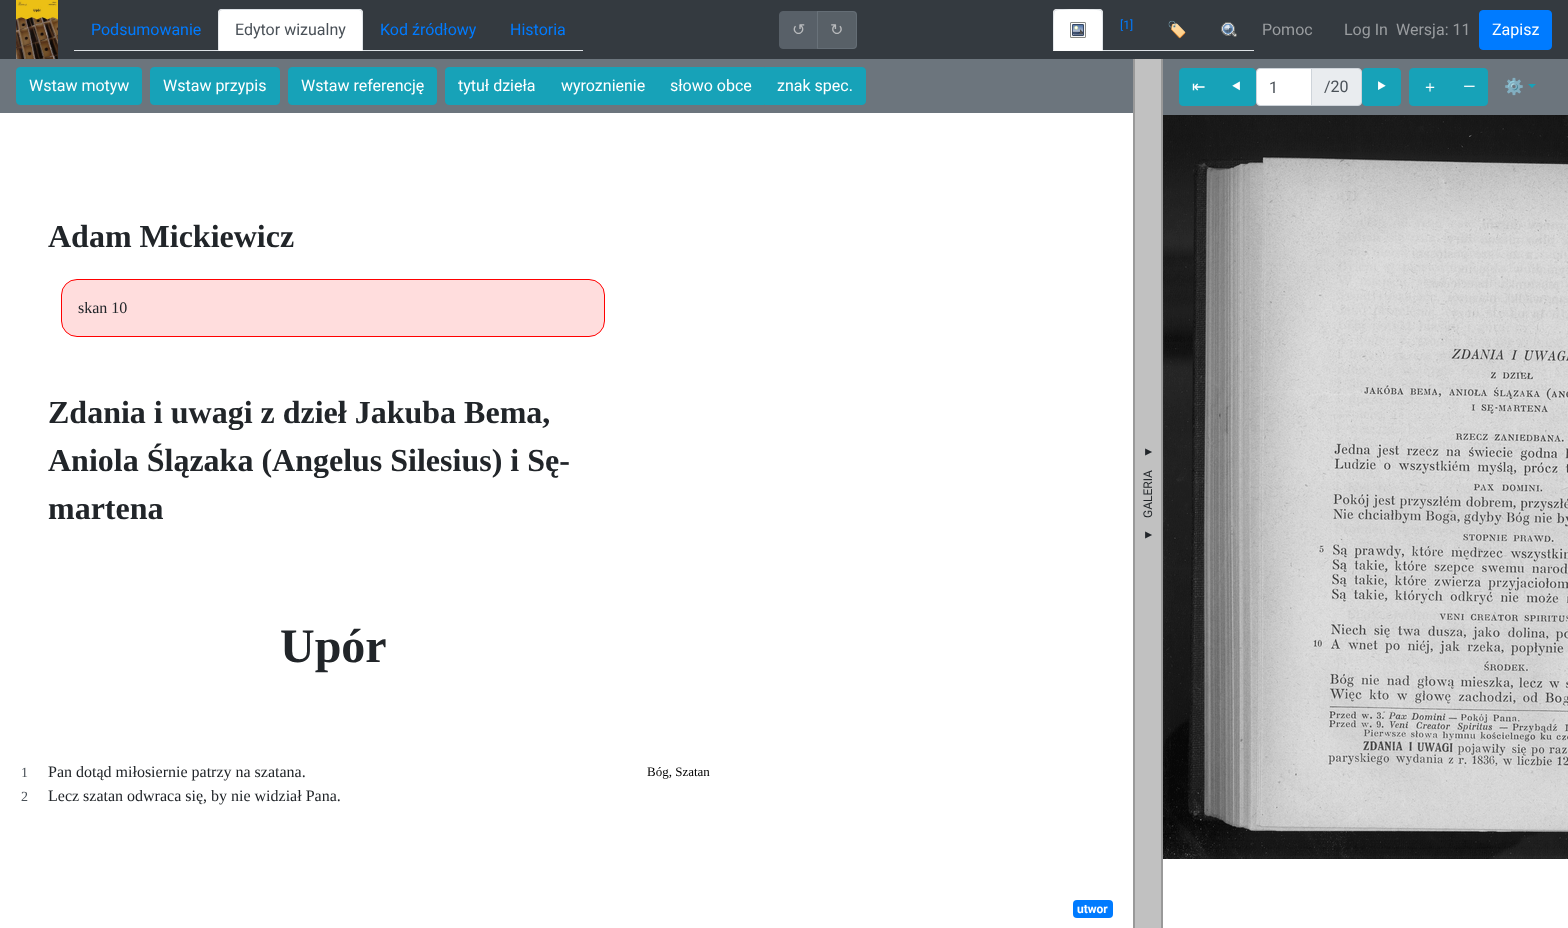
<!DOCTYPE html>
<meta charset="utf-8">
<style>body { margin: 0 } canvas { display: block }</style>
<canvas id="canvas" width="1568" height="928"></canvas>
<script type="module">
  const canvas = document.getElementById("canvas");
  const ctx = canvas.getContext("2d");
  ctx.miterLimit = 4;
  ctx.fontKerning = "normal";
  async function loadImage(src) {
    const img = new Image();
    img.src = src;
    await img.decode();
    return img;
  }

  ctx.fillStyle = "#ffffff";
  ctx.fillRect(0, 0, 1568, 928);
  ctx.fillStyle = "#343a40";
  ctx.fillRect(0, 0, 1568, 59);
  ctx.drawImage(await loadImage("img1.png"), 16, 0, 42, 59);
  ctx.fillStyle = "#dee2e6";
  ctx.fillRect(74, 50, 509, 1);
  ctx.font = "16px Roboto";
  ctx.fillStyle = "#007bff";
  ctx.fillText("Podsumowanie", 91, 35);
  ctx.fillStyle = "#ffffff";
  ctx.beginPath();
  ctx.roundRect(218, 9, 145, 42, [4, 4, 0, 0]);
  ctx.fill();
  ctx.fillStyle = "#dee2e6";
  ctx.beginPath();
  ctx.moveTo(222, 9);
  ctx.lineTo(219, 10);
  ctx.lineTo(220, 11);
  ctx.lineTo(222, 10);
  ctx.lineTo(359, 10);
  ctx.lineTo(361, 11);
  ctx.lineTo(362, 10);
  ctx.lineTo(359, 9);
  ctx.closePath();
  ctx.fill();
  ctx.beginPath();
  ctx.moveTo(363, 51);
  ctx.lineTo(363, 13);
  ctx.bezierCurveTo(363, 12, 362, 11, 362, 10);
  ctx.lineTo(361, 11);
  ctx.bezierCurveTo(363, 13, 362, 45, 362, 50);
  ctx.closePath();
  ctx.fill();
  ctx.fillStyle = "#ffffff";
  ctx.beginPath();
  ctx.moveTo(363, 51);
  ctx.lineTo(362, 50);
  ctx.lineTo(219, 50);
  ctx.lineTo(218, 51);
  ctx.closePath();
  ctx.fill();
  ctx.fillStyle = "#dee2e6";
  ctx.beginPath();
  ctx.moveTo(218, 51);
  ctx.lineTo(219, 50);
  ctx.bezierCurveTo(219, 45, 218, 13, 220, 11);
  ctx.lineTo(219, 10);
  ctx.lineTo(218, 13);
  ctx.closePath();
  ctx.fill();
  ctx.fillStyle = "#495057";
  ctx.fillText("Edytor wizualny", 235, 35);
  ctx.fillStyle = "#007bff";
  ctx.fillText("Kod źródłowy", 380, 35);
  ctx.fillText("Historia", 510, 35);
  ctx.fillStyle = "#586068";
  ctx.beginPath();
  ctx.roundRect(779.5, 11.5, 38, 37, [3.5, 0, 0, 3.5]);
  ctx.fill();
  ctx.strokeStyle = "#586068";
  ctx.stroke();
  ctx.font = "16px DejaVu Sans";
  ctx.fillStyle = "#b8babc";
  ctx.fillText("↺", 792, 35);
  ctx.fillStyle = "rgba(108, 117, 125, 0.65)";
  ctx.beginPath();
  ctx.roundRect(817, 11, 40, 38, [0, 4, 4, 0]);
  ctx.fill();
  ctx.beginPath();
  ctx.roundRect(817.5, 11.5, 39, 37, [0, 3.5, 3.5, 0]);
  ctx.strokeStyle = "rgba(108, 117, 125, 0.65)";
  ctx.stroke();
  ctx.fillStyle = "#b8babc";
  ctx.fillText("↻", 830, 35);
  ctx.fillStyle = "#dee2e6";
  ctx.fillRect(1103, 50, 151, 1);
  ctx.fillStyle = "#ffffff";
  ctx.beginPath();
  ctx.roundRect(1053, 9, 50, 42, [4, 4, 0, 0]);
  ctx.fill();
  ctx.fillStyle = "#dee2e6";
  ctx.beginPath();
  ctx.moveTo(1057, 9);
  ctx.lineTo(1054, 10);
  ctx.lineTo(1055, 11);
  ctx.bezierCurveTo(1056, 9, 1100, 9, 1101, 11);
  ctx.lineTo(1102, 10);
  ctx.lineTo(1099, 9);
  ctx.closePath();
  ctx.fill();
  ctx.beginPath();
  ctx.moveTo(1103, 51);
  ctx.lineTo(1103, 13);
  ctx.bezierCurveTo(1103, 12, 1102, 11, 1102, 10);
  ctx.lineTo(1101, 11);
  ctx.bezierCurveTo(1103, 13, 1102, 45, 1102, 50);
  ctx.closePath();
  ctx.fill();
  ctx.fillStyle = "#ffffff";
  ctx.beginPath();
  ctx.moveTo(1103, 51);
  ctx.lineTo(1102, 50);
  ctx.lineTo(1054, 50);
  ctx.lineTo(1053, 51);
  ctx.closePath();
  ctx.fill();
  ctx.fillStyle = "#dee2e6";
  ctx.beginPath();
  ctx.moveTo(1053, 51);
  ctx.lineTo(1054, 50);
  ctx.bezierCurveTo(1054, 45, 1053, 13, 1055, 11);
  ctx.lineTo(1054, 10);
  ctx.lineTo(1053, 13);
  ctx.closePath();
  ctx.fill();
  ctx.drawImage(await loadImage("img2.png"), 1070, 22, 16, 16);
  ctx.font = "12px Roboto";
  ctx.fillStyle = "#007bff";
  ctx.fillText("[1]", 1120, 29);
  ctx.font = "16px Noto Color Emoji";
  ctx.fillText("🏷", 1167, 35);
  ctx.drawImage(await loadImage("img3.png"), 1221, 22, 16, 15);
  ctx.font = "16px Roboto";
  ctx.fillStyle = "#9a9da0";
  ctx.fillText("Pomoc", 1262, 35);
  ctx.fillText("Log In", 1344, 35);
  ctx.fillText("Wersja: 11", 1396, 35);
  ctx.fillStyle = "#007bff";
  ctx.beginPath();
  ctx.roundRect(1479.5, 10.5, 72, 39, 3.5);
  ctx.fill();
  ctx.strokeStyle = "#007bff";
  ctx.stroke();
  ctx.fillStyle = "#ffffff";
  ctx.fillText("Zapisz", 1492, 35);
  ctx.fillStyle = "#6c757d";
  ctx.fillRect(0, 59, 1133, 54);
  ctx.fillStyle = "#17a2b8";
  ctx.beginPath();
  ctx.roundRect(16.5, 67.5, 125, 37, 3.5);
  ctx.fill();
  ctx.strokeStyle = "#17a2b8";
  ctx.stroke();
  ctx.fillStyle = "#ffffff";
  ctx.fillText("Wstaw motyw", 29, 91);
  ctx.fillStyle = "#17a2b8";
  ctx.beginPath();
  ctx.roundRect(150.5, 67.5, 129, 37, 3.5);
  ctx.fill();
  ctx.stroke();
  ctx.fillStyle = "#ffffff";
  ctx.fillText("Wstaw przypis", 163, 91);
  ctx.fillStyle = "#17a2b8";
  ctx.beginPath();
  ctx.roundRect(288.5, 67.5, 148, 37, 3.5);
  ctx.fill();
  ctx.stroke();
  ctx.fillStyle = "#ffffff";
  ctx.fillText("Wstaw referencję", 301, 91);
  ctx.fillStyle = "#17a2b8";
  ctx.beginPath();
  ctx.roundRect(445.5, 67.5, 103, 37, [3.5, 0, 0, 3.5]);
  ctx.fill();
  ctx.stroke();
  ctx.fillStyle = "#ffffff";
  ctx.fillText("tytuł dzieła", 458, 91);
  ctx.fillStyle = "#17a2b8";
  ctx.fillRect(549, 67, 215, 38);
  ctx.fillStyle = "#ffffff";
  ctx.fillText("wyroznienie", 561, 91);
  ctx.fillText("słowo obce", 670, 91);
  ctx.fillStyle = "#17a2b8";
  ctx.beginPath();
  ctx.roundRect(764.5, 67.5, 101, 37, [0, 3.5, 3.5, 0]);
  ctx.fill();
  ctx.stroke();
  ctx.fillStyle = "#ffffff";
  ctx.fillText("znak spec.", 777, 91);
  ctx.font = "bold 32px Liberation Serif";
  ctx.fillStyle = "#212529";
  ctx.fillText("Adam Mickiewicz", 48, 247);
  ctx.fillStyle = "#ffdddd";
  ctx.beginPath();
  ctx.roundRect(61.5, 279.5, 543, 57, 15.5);
  ctx.fill();
  ctx.strokeStyle = "#ff0000";
  ctx.stroke();
  ctx.font = "16px Liberation Serif";
  ctx.fillStyle = "#212529";
  ctx.fillText("skan 10", 78, 313);
  ctx.font = "bold 32px Liberation Serif";
  ctx.fillText("Zdania i uwagi z dzieł Jakuba Bema,", 48, 423);
  ctx.fillText("Aniola Ślązaka (Angelus Silesius) i Sę-", 48, 471);
  ctx.fillText("martena", 48, 519);
  ctx.font = "bold 48px Liberation Serif";
  ctx.fillText("Upór", 280, 662);
  ctx.font = "14px Liberation Serif";
  ctx.fillStyle = "#495057";
  ctx.fillText("1", 21, 777);
  ctx.font = "16px Liberation Serif";
  ctx.fillStyle = "#212529";
  ctx.fillText("Pan dotąd miłosiernie patrzy na szatana.", 48, 777);
  ctx.font = "13px Liberation Serif";
  ctx.fillStyle = "#000000";
  ctx.fillText("Bóg, Szatan", 647, 776);
  ctx.font = "14px Liberation Serif";
  ctx.fillStyle = "#495057";
  ctx.fillText("2", 21, 801);
  ctx.font = "16px Liberation Serif";
  ctx.fillStyle = "#212529";
  ctx.fillText("Lecz szatan odwraca się, by nie widział Pana.", 48, 801);
  ctx.fillStyle = "#007bff";
  ctx.beginPath();
  ctx.roundRect(1073, 900, 40, 18, 4);
  ctx.fill();
  ctx.font = "bold 12px Roboto";
  ctx.fillStyle = "#ffffff";
  ctx.fillText("utwor", 1077, 913);
  ctx.fillStyle = "#c1c1c1";
  ctx.fillRect(1135, 59, 26, 869);
  ctx.fillStyle = "#999999";
  ctx.fillRect(1161, 59, 2, 869);
  ctx.fillRect(1133, 59, 2, 869);
  ctx.font = "12px Liberation Sans";
  ctx.fillStyle = "#212529";
  ctx.save();
  ctx.translate(1152, 458);
  ctx.rotate(-90 * Math.PI / 180);
  ctx.fillText("▼", 0, 0);
  ctx.restore();
  ctx.font = "12px Roboto";
  ctx.save();
  ctx.translate(1152, 518);
  ctx.rotate(-90 * Math.PI / 180);
  ctx.fillText("GALERIA", 0, 0);
  ctx.restore();
  ctx.font = "12px Liberation Sans";
  ctx.save();
  ctx.translate(1152, 541);
  ctx.rotate(-90 * Math.PI / 180);
  ctx.fillText("▼", 0, 0);
  ctx.restore();
  ctx.fillStyle = "#6c757d";
  ctx.fillRect(1163, 59, 405, 56);
  ctx.fillStyle = "#17a2b8";
  ctx.beginPath();
  ctx.roundRect(1179.5, 68.5, 38, 37, [3.5, 0, 0, 3.5]);
  ctx.fill();
  ctx.strokeStyle = "#17a2b8";
  ctx.stroke();
  ctx.font = "16px DejaVu Sans";
  ctx.fillStyle = "#ffffff";
  ctx.fillText("⇤", 1192, 92);
  ctx.fillStyle = "#17a2b8";
  ctx.beginPath();
  ctx.roundRect(1217.5, 68.5, 38, 37, [0, 3.5, 3.5, 0]);
  ctx.fill();
  ctx.stroke();
  ctx.font = "16px FreeSans";
  ctx.fillStyle = "#ffffff";
  ctx.fillText("⯇", 1230, 92);
  ctx.fillStyle = "#e9ecef";
  ctx.beginPath();
  ctx.roundRect(1311.5, 68.5, 50, 37, [0, 3.5, 3.5, 0]);
  ctx.fill();
  ctx.strokeStyle = "#ced4da";
  ctx.stroke();
  ctx.fillStyle = "#ffffff";
  ctx.beginPath();
  ctx.roundRect(1256.5, 68.5, 55, 37, [3.5, 0, 0, 3.5]);
  ctx.fill();
  ctx.stroke();
  ctx.font = "16px Roboto";
  ctx.fillStyle = "#495057";
  ctx.fillText("1", 1269, 93);
  ctx.fillText("/20", 1324, 92);
  ctx.fillStyle = "#17a2b8";
  ctx.beginPath();
  ctx.roundRect(1362.5, 68.5, 38, 37, 3.5);
  ctx.fill();
  ctx.strokeStyle = "#17a2b8";
  ctx.stroke();
  ctx.font = "16px FreeSans";
  ctx.fillStyle = "#ffffff";
  ctx.fillText("⯈", 1375, 92);
  ctx.fillStyle = "#17a2b8";
  ctx.beginPath();
  ctx.roundRect(1409.5, 68.5, 41, 37, [3.5, 0, 0, 3.5]);
  ctx.fill();
  ctx.stroke();
  ctx.font = "500 16px WenQuanYi Zen Hei";
  ctx.fillStyle = "#ffffff";
  ctx.fillText("＋", 1422, 92);
  ctx.fillStyle = "#17a2b8";
  ctx.beginPath();
  ctx.roundRect(1450.5, 68.5, 37, 37, [0, 3.5, 3.5, 0]);
  ctx.fill();
  ctx.stroke();
  ctx.font = "16px Roboto";
  ctx.fillStyle = "#ffffff";
  ctx.fillText("—", 1463, 92);
  ctx.font = "16px Noto Color Emoji";
  ctx.fillStyle = "#17a2b8";
  ctx.fillText("⚙", 1504, 92);
  ctx.beginPath();
  ctx.moveTo(1528, 84);
  ctx.lineTo(1536, 84);
  ctx.lineTo(1532, 88);
  ctx.closePath();
  ctx.fill();
  ctx.drawImage(await loadImage("img4.png"), 1163, 115, 405, 744);
</script>
